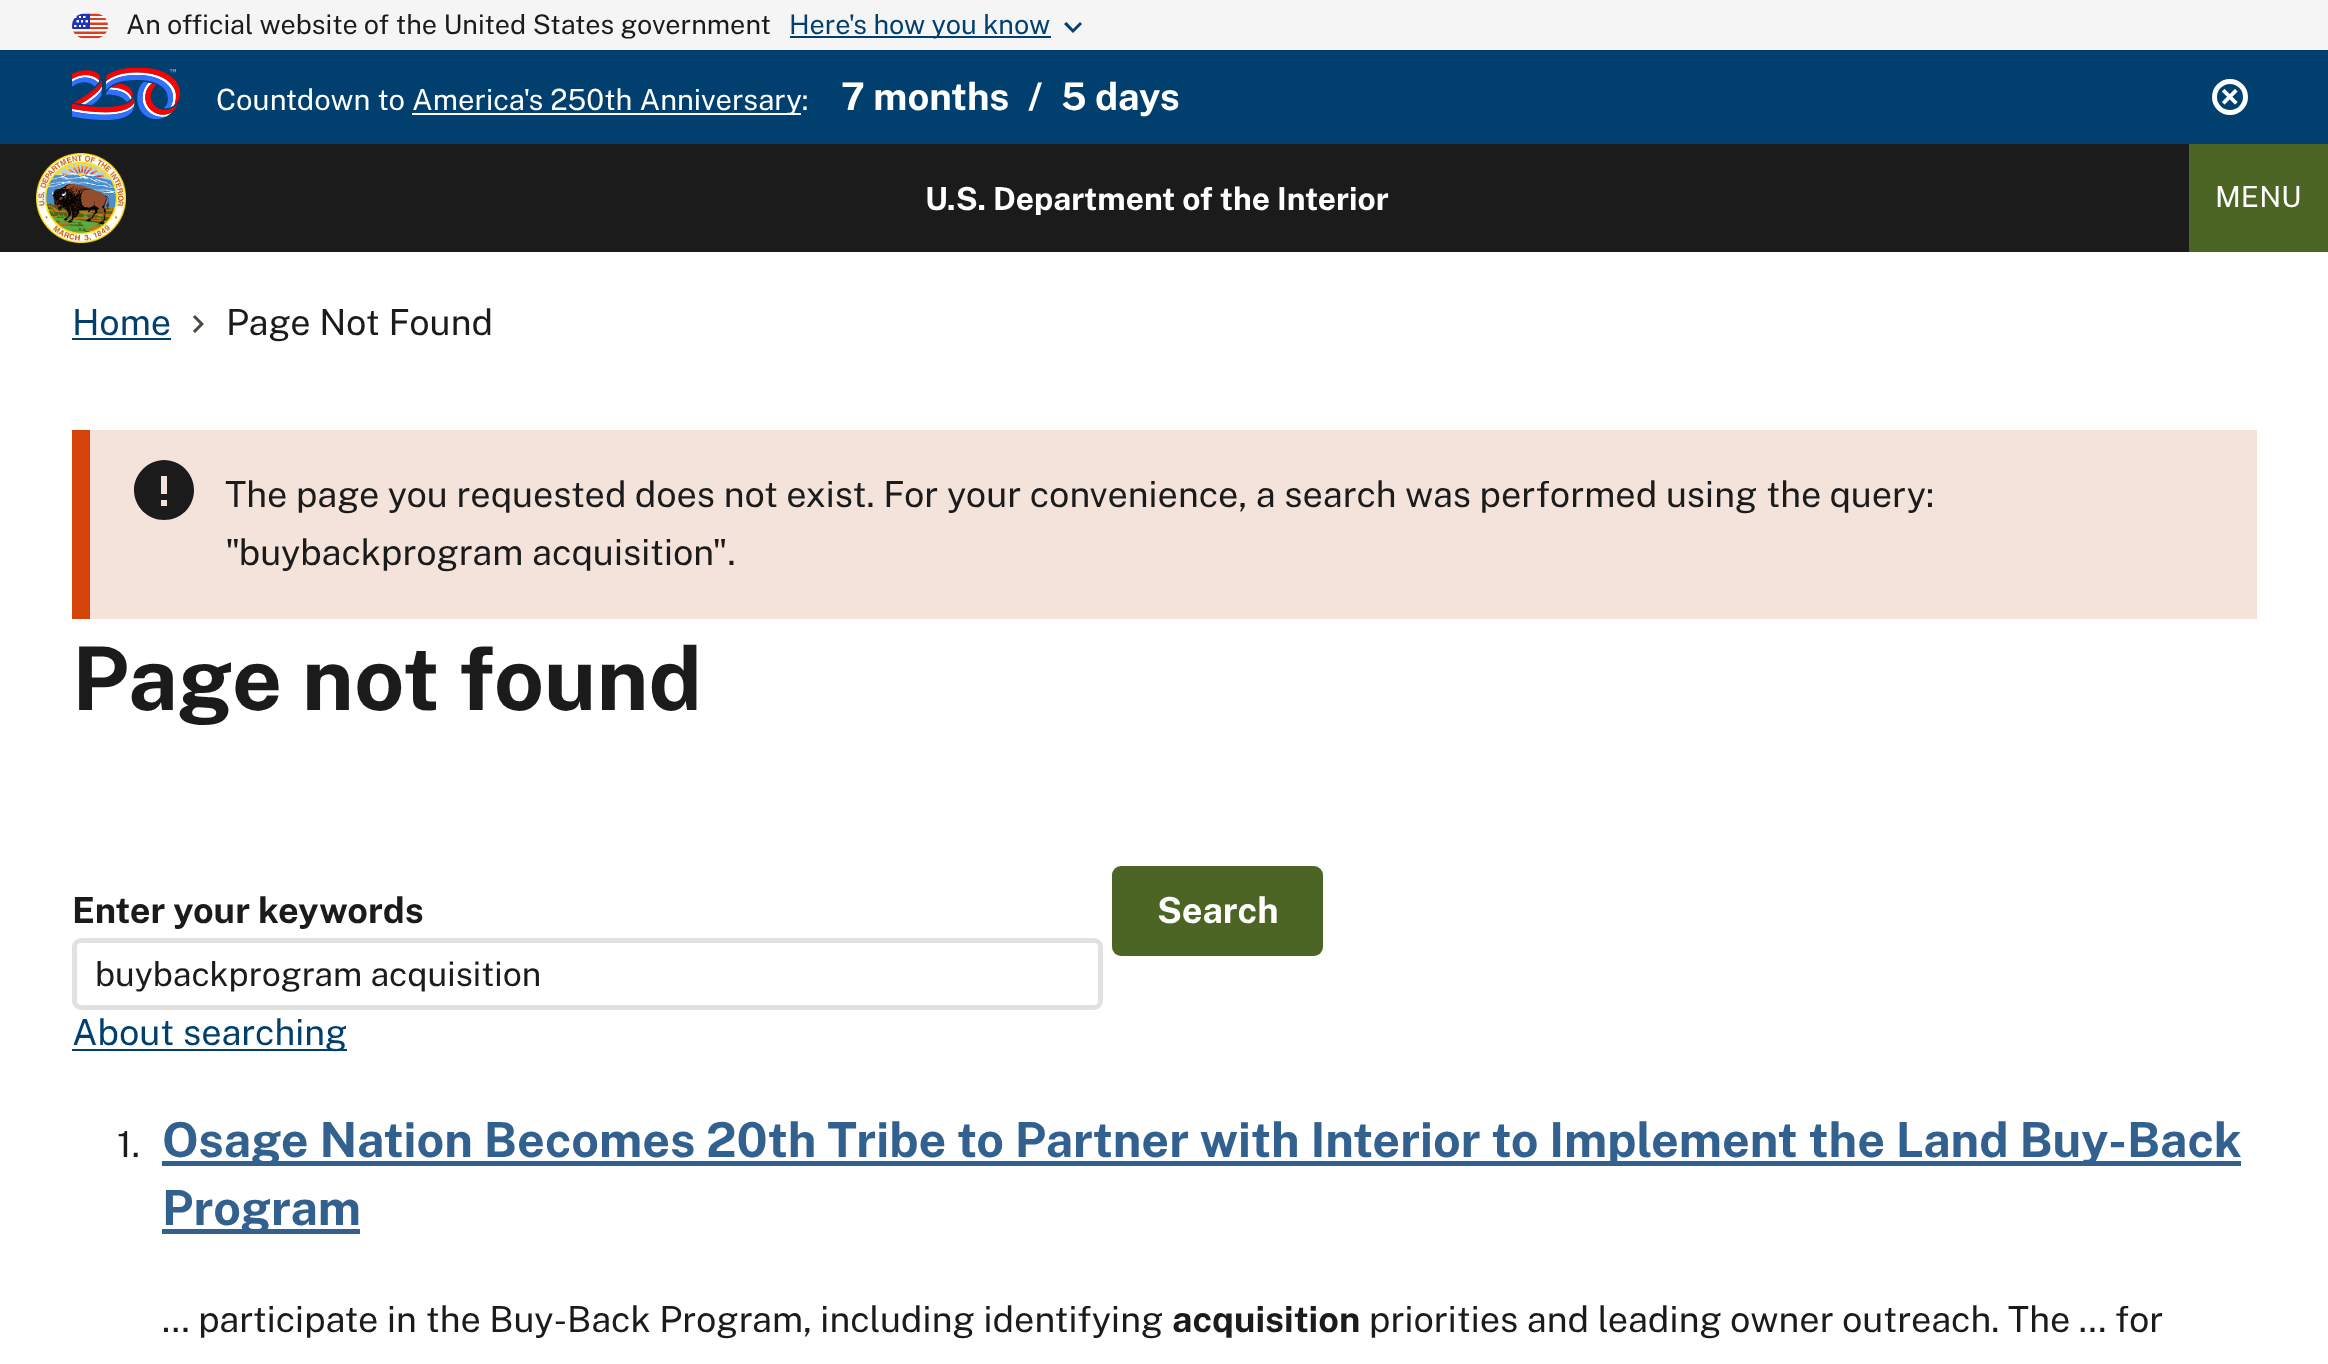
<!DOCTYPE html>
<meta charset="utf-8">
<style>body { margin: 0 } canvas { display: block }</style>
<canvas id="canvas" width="2328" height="1364"></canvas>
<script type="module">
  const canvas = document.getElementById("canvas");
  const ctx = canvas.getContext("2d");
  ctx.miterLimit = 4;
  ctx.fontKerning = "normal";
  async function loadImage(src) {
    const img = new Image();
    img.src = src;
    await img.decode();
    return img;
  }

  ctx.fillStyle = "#ffffff";
  ctx.fillRect(0, 0, 2328, 1364);
  ctx.fillStyle = "#f5f5f5";
  ctx.fillRect(0, 0, 2328, 50);
  ctx.drawImage(await loadImage("img1.png"), 72, 13, 36, 26);
  ctx.font = "27px Public Sans";
  ctx.fillStyle = "#1b1b1b";
  ctx.fillText("An official website of the United States government", 126, 34);
  ctx.fillStyle = "#01406e";
  ctx.fillRect(790, 36, 261, 2);
  ctx.fillText("Here's how you know", 789, 34);
  ctx.beginPath();
  ctx.moveTo(1080, 22);
  ctx.lineTo(1073, 29);
  ctx.lineTo(1066.5, 22);
  ctx.lineTo(1064, 24);
  ctx.lineTo(1073, 33);
  ctx.lineTo(1082, 24);
  ctx.closePath();
  ctx.fill();
  ctx.fillRect(0, 50, 2328, 94);
  ctx.drawImage(await loadImage("img2.png"), 72, 68, 108, 52);
  ctx.font = "29.2px Public Sans";
  ctx.fillStyle = "#ffffff";
  ctx.fillText("Countdown to", 216, 110);
  ctx.fillRect(412, 113, 389, 2);
  ctx.fillText("America's 250th Anniversary:", 412, 110);
  ctx.font = "bold 38px Public Sans";
  ctx.fillText("7 months", 841, 110);
  ctx.fillText("/", 1028, 110);
  ctx.fillText("5 days", 1061, 110);
  ctx.drawImage(await loadImage("img3.png"), 2221, 88, 17, 17);
  ctx.beginPath();
  ctx.arc(2230, 97, 15.5, 0, Math.PI * 2);
  ctx.strokeStyle = "#ffffff";
  ctx.lineWidth = 5;
  ctx.stroke();
  ctx.fillStyle = "#1b1b1b";
  ctx.fillRect(0, 144, 2189, 108);
  ctx.drawImage(await loadImage("img4.png"), 36, 153, 90, 90);
  ctx.font = "bold 31.7px Public Sans";
  ctx.fillStyle = "#ffffff";
  ctx.fillText("U.S. Department of the Interior", 925, 210);
  ctx.fillStyle = "#4c6424";
  ctx.fillRect(2189, 144, 139, 108);
  ctx.font = "29.2px Public Sans";
  ctx.fillStyle = "#ffffff";
  ctx.fillText("MENU", 2215, 207);
  ctx.font = "36px Public Sans";
  ctx.fillStyle = "#01406e";
  ctx.fillText("Home", 72, 335);
  ctx.fillRect(72, 338, 99, 2);
  ctx.drawImage(await loadImage("img5.png"), 193, 315, 11, 18);
  ctx.fillStyle = "#1b1b1b";
  ctx.fillText("Page Not Found", 226, 335);
  ctx.fillStyle = "#f4e3db";
  ctx.fillRect(90, 430, 2167, 189);
  ctx.fillStyle = "#d54309";
  ctx.fillRect(72, 430, 18, 189);
  ctx.fillStyle = "#1b1b1b";
  ctx.beginPath();
  ctx.moveTo(164, 460);
  ctx.bezierCurveTo(148, 460, 134, 474, 134, 490);
  ctx.bezierCurveTo(134, 507, 148, 520, 164, 520);
  ctx.bezierCurveTo(181, 520, 194, 507, 194, 490);
  ctx.bezierCurveTo(194, 474, 181, 460, 164, 460);
  ctx.closePath();
  ctx.moveTo(167, 506);
  ctx.lineTo(161, 506);
  ctx.lineTo(161, 500);
  ctx.lineTo(167, 500);
  ctx.closePath();
  ctx.moveTo(167, 494);
  ctx.lineTo(161, 494);
  ctx.lineTo(161, 476);
  ctx.lineTo(167, 476);
  ctx.closePath();
  ctx.fill();
  ctx.fillText("The page you requested does not exist. For your convenience, a search was performed using the query:", 225, 507);
  ctx.fillText("\"buybackprogram acquisition\".", 225, 565);
  ctx.font = "bold 87.75px Public Sans";
  ctx.fillText("Page not found", 72, 710);
  ctx.font = "bold 36px Public Sans";
  ctx.fillText("Enter your keywords", 72, 923);
  ctx.beginPath();
  ctx.roundRect(74.5, 940.5, 1026, 67, 6.5);
  ctx.strokeStyle = "#e1e1df";
  ctx.stroke();
  ctx.font = "33.8px Public Sans";
  ctx.fillText("buybackprogram acquisition", 95, 986);
  ctx.fillStyle = "#4c6424";
  ctx.beginPath();
  ctx.roundRect(1112, 866, 211, 90, 9);
  ctx.fill();
  ctx.font = "bold 36px Public Sans";
  ctx.fillStyle = "#ffffff";
  ctx.fillText("Search", 1157, 923);
  ctx.fillStyle = "#01406e";
  ctx.fillRect(72, 1049, 275, 2);
  ctx.font = "36px Public Sans";
  ctx.fillText("About searching", 72, 1045);
  ctx.fillStyle = "#1b1b1b";
  ctx.fillText("1.", 117, 1157);
  ctx.fillStyle = "#33618f";
  ctx.fillRect(162, 1161, 2079, 5);
  ctx.font = "bold 48.25px Public Sans";
  ctx.fillText("Osage Nation Becomes 20th Tribe to Partner with Interior to Implement the Land Buy-Back", 162, 1157);
  ctx.fillRect(162, 1229, 198, 5);
  ctx.fillText("Program", 162, 1225);
  ctx.font = "36px Public Sans";
  ctx.fillStyle = "#1b1b1b";
  ctx.fillText("… participate in the Buy-Back Program, including identifying", 162, 1332);
  ctx.font = "bold 36px Public Sans";
  ctx.fillText("acquisition", 1172, 1332);
  ctx.font = "36px Public Sans";
  ctx.fillText("priorities and leading owner outreach. The … for", 1369, 1332);
</script>
